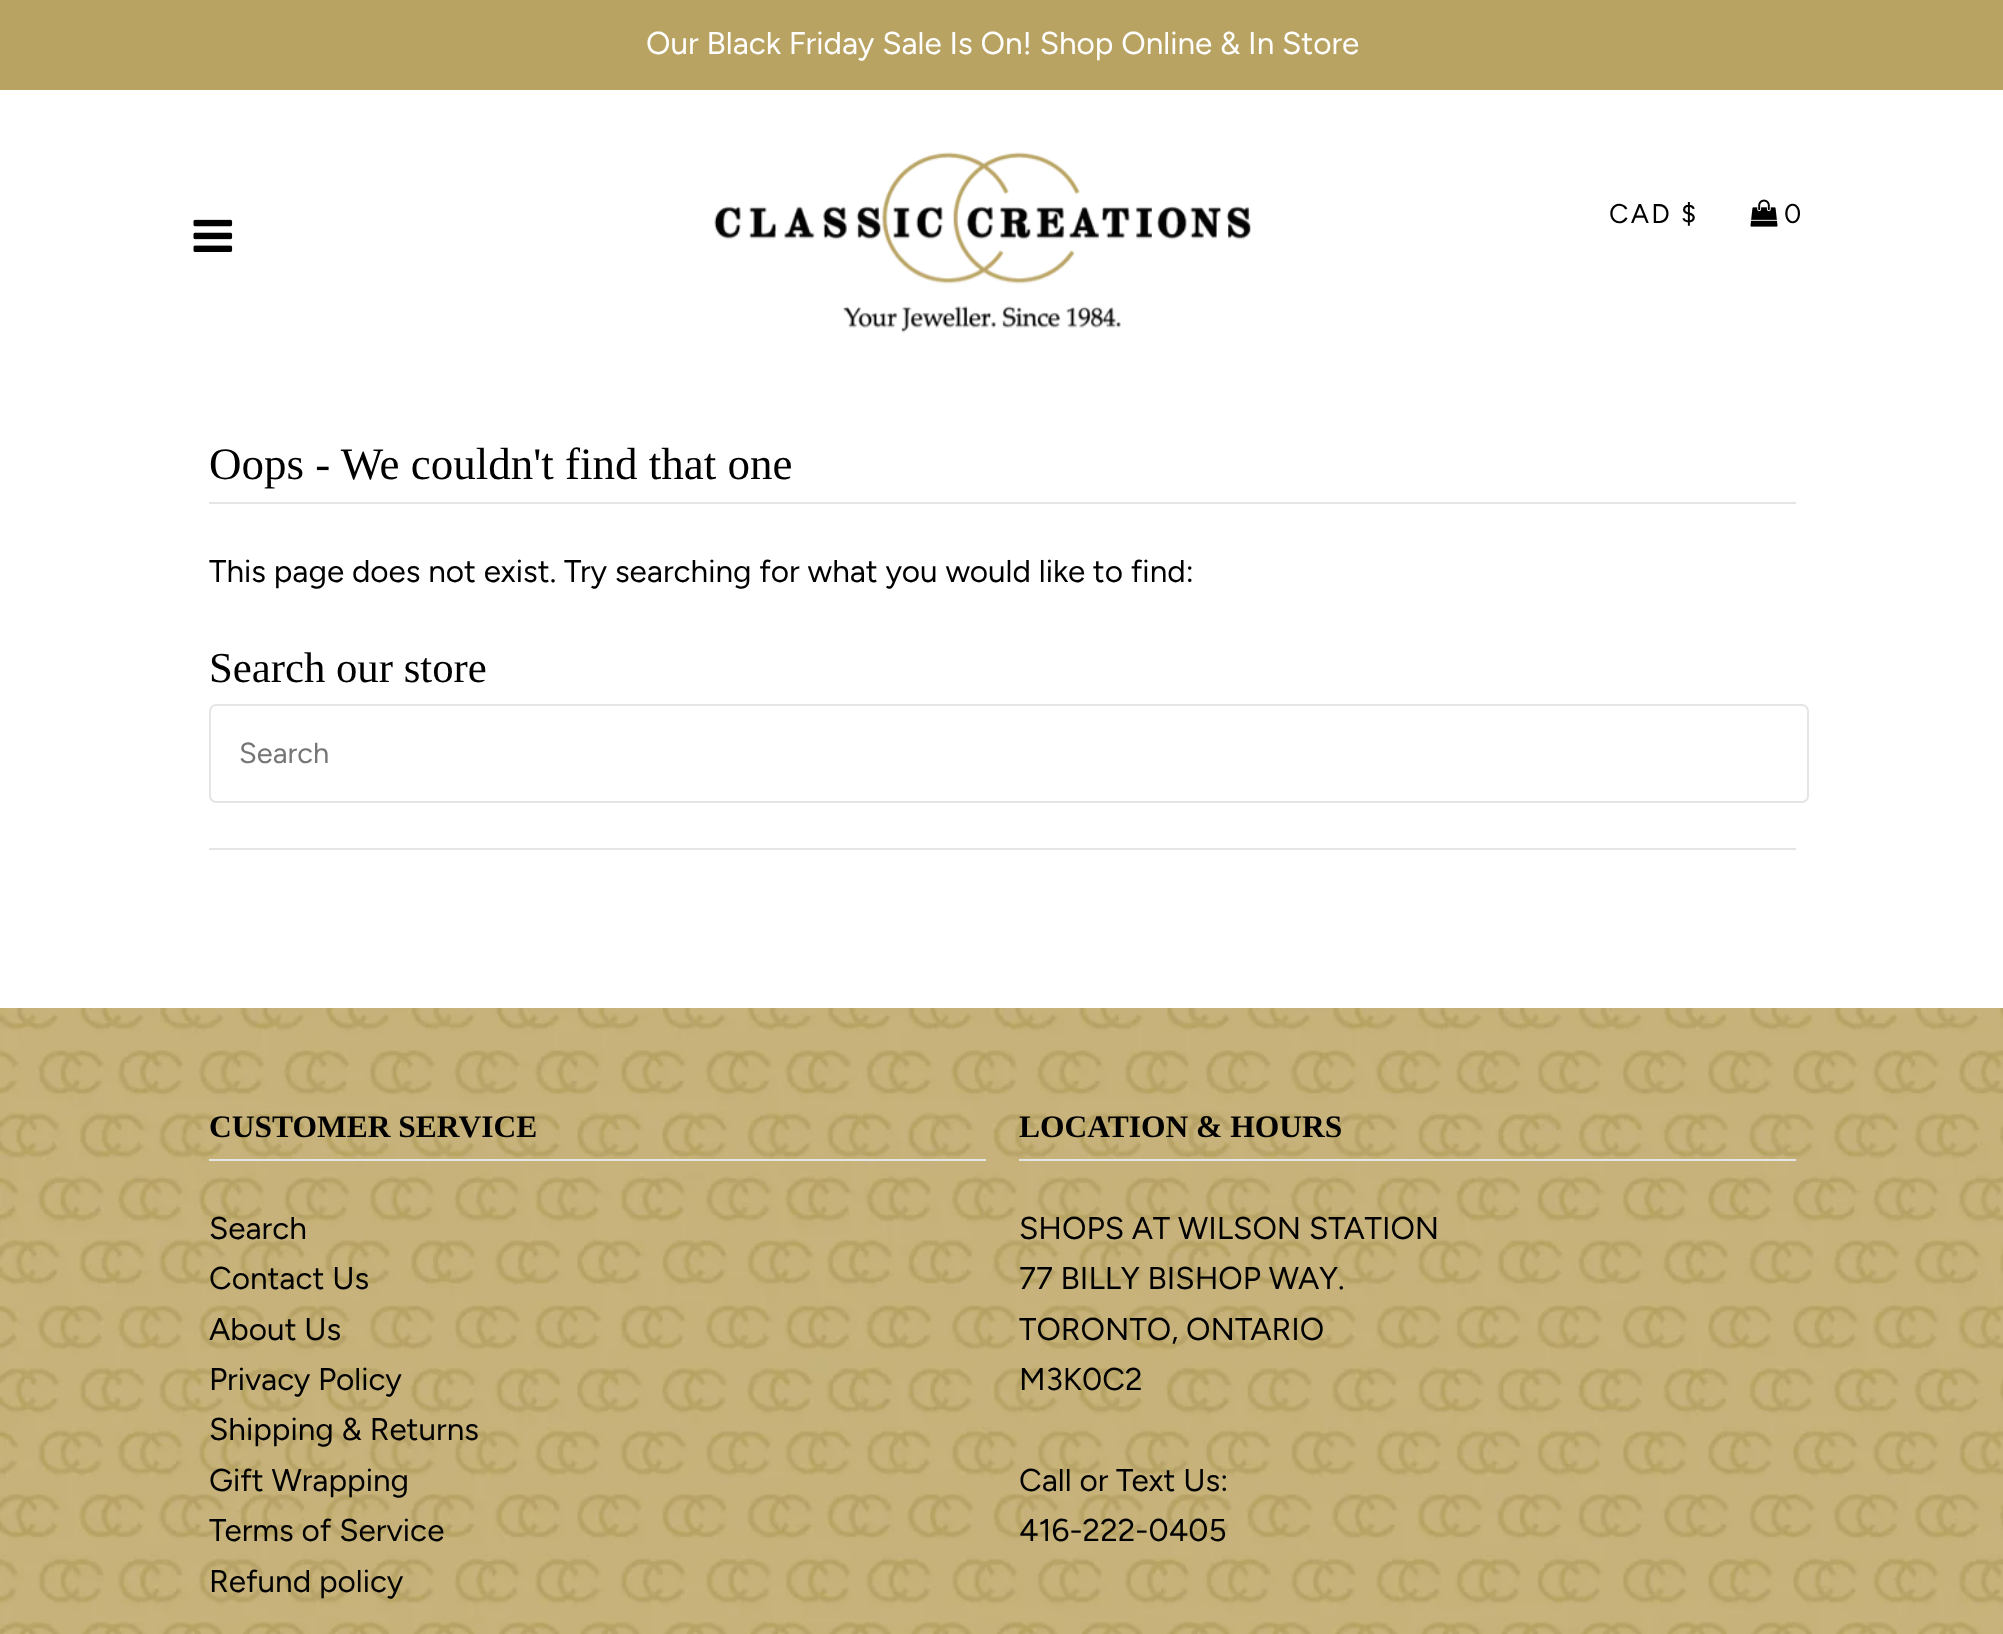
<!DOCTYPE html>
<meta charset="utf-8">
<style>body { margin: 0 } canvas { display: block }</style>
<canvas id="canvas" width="2003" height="1634"></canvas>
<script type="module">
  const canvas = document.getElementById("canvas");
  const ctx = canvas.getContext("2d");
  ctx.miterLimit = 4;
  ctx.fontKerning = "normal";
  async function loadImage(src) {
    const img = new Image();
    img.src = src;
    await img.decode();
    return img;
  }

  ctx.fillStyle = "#ffffff";
  ctx.fillRect(0, 0, 2003, 1634);
  ctx.fillStyle = "#b9a363";
  ctx.fillRect(0, 0, 2003, 90);
  ctx.font = "31.5px Figtree";
  ctx.fillStyle = "#ffffff";
  ctx.fillText("Our Black Friday Sale Is On! Shop Online & In Store", 646, 54);
  ctx.drawImage(await loadImage("img1.png"), 714, 152, 537, 181);
  ctx.letterSpacing = "2.25px";
  ctx.font = "27px Figtree";
  ctx.fillStyle = "#000000";
  ctx.fillText("CAD $", 1609, 223);
  ctx.drawImage(await loadImage("img2.png"), 1750, 199, 28, 28);
  ctx.letterSpacing = "0px";
  ctx.fillText("0", 1784, 223);
  ctx.drawImage(await loadImage("img3.png"), 193, 219, 40, 33);
  ctx.fillStyle = "#e5e5e5";
  ctx.fillRect(209, 502, 1587, 2);
  ctx.font = "45px Liberation Serif";
  ctx.fillStyle = "#000000";
  ctx.fillText("Oops - We couldn't find that one", 209, 479);
  ctx.font = "31.5px Figtree";
  ctx.fillText("This page does not exist. Try searching for what you would like to find:", 209, 582);
  ctx.fillStyle = "#e5e5e5";
  ctx.fillRect(209, 848, 1587, 2);
  ctx.font = "42.75px Liberation Serif";
  ctx.fillStyle = "#000000";
  ctx.fillText("Search our store", 209, 682);
  ctx.beginPath();
  ctx.roundRect(210, 705, 1598, 97, 6);
  ctx.strokeStyle = "#e5e5e5";
  ctx.lineWidth = 2;
  ctx.stroke();
  ctx.font = "29px Figtree";
  ctx.fillStyle = "#757575";
  ctx.fillText("Search", 239, 763);
  ctx.drawImage(await loadImage("img4.png"), 0, 1008, 2003, 626);
  ctx.fillStyle = "#e5e5e5";
  ctx.fillRect(209, 1159, 777, 2);
  ctx.font = "bold 31.5px Liberation Serif";
  ctx.fillStyle = "#000000";
  ctx.fillText("CUSTOMER SERVICE", 209, 1137);
  ctx.font = "31.5px Figtree";
  ctx.fillText("Search", 209, 1239);
  ctx.fillText("Contact Us", 209, 1289);
  ctx.fillText("About Us", 209, 1340);
  ctx.fillText("Privacy Policy", 209, 1390);
  ctx.fillText("Shipping & Returns", 209, 1440);
  ctx.fillText("Gift Wrapping", 209, 1491);
  ctx.fillText("Terms of Service", 209, 1541);
  ctx.fillText("Refund policy", 209, 1592);
  ctx.fillStyle = "#e5e5e5";
  ctx.fillRect(1019, 1159, 777, 2);
  ctx.font = "bold 31.5px Liberation Serif";
  ctx.fillStyle = "#000000";
  ctx.fillText("LOCATION & HOURS", 1019, 1137);
  ctx.font = "31.5px Figtree";
  ctx.fillText("SHOPS AT WILSON STATION", 1019, 1239);
  ctx.fillText("77 BILLY BISHOP WAY.", 1019, 1289);
  ctx.fillText("TORONTO, ONTARIO", 1019, 1340);
  ctx.fillText("M3K0C2", 1019, 1390);
  ctx.fillText("Call or Text Us:", 1019, 1491);
  ctx.fillText("416-222-0405", 1019, 1541);
</script>
